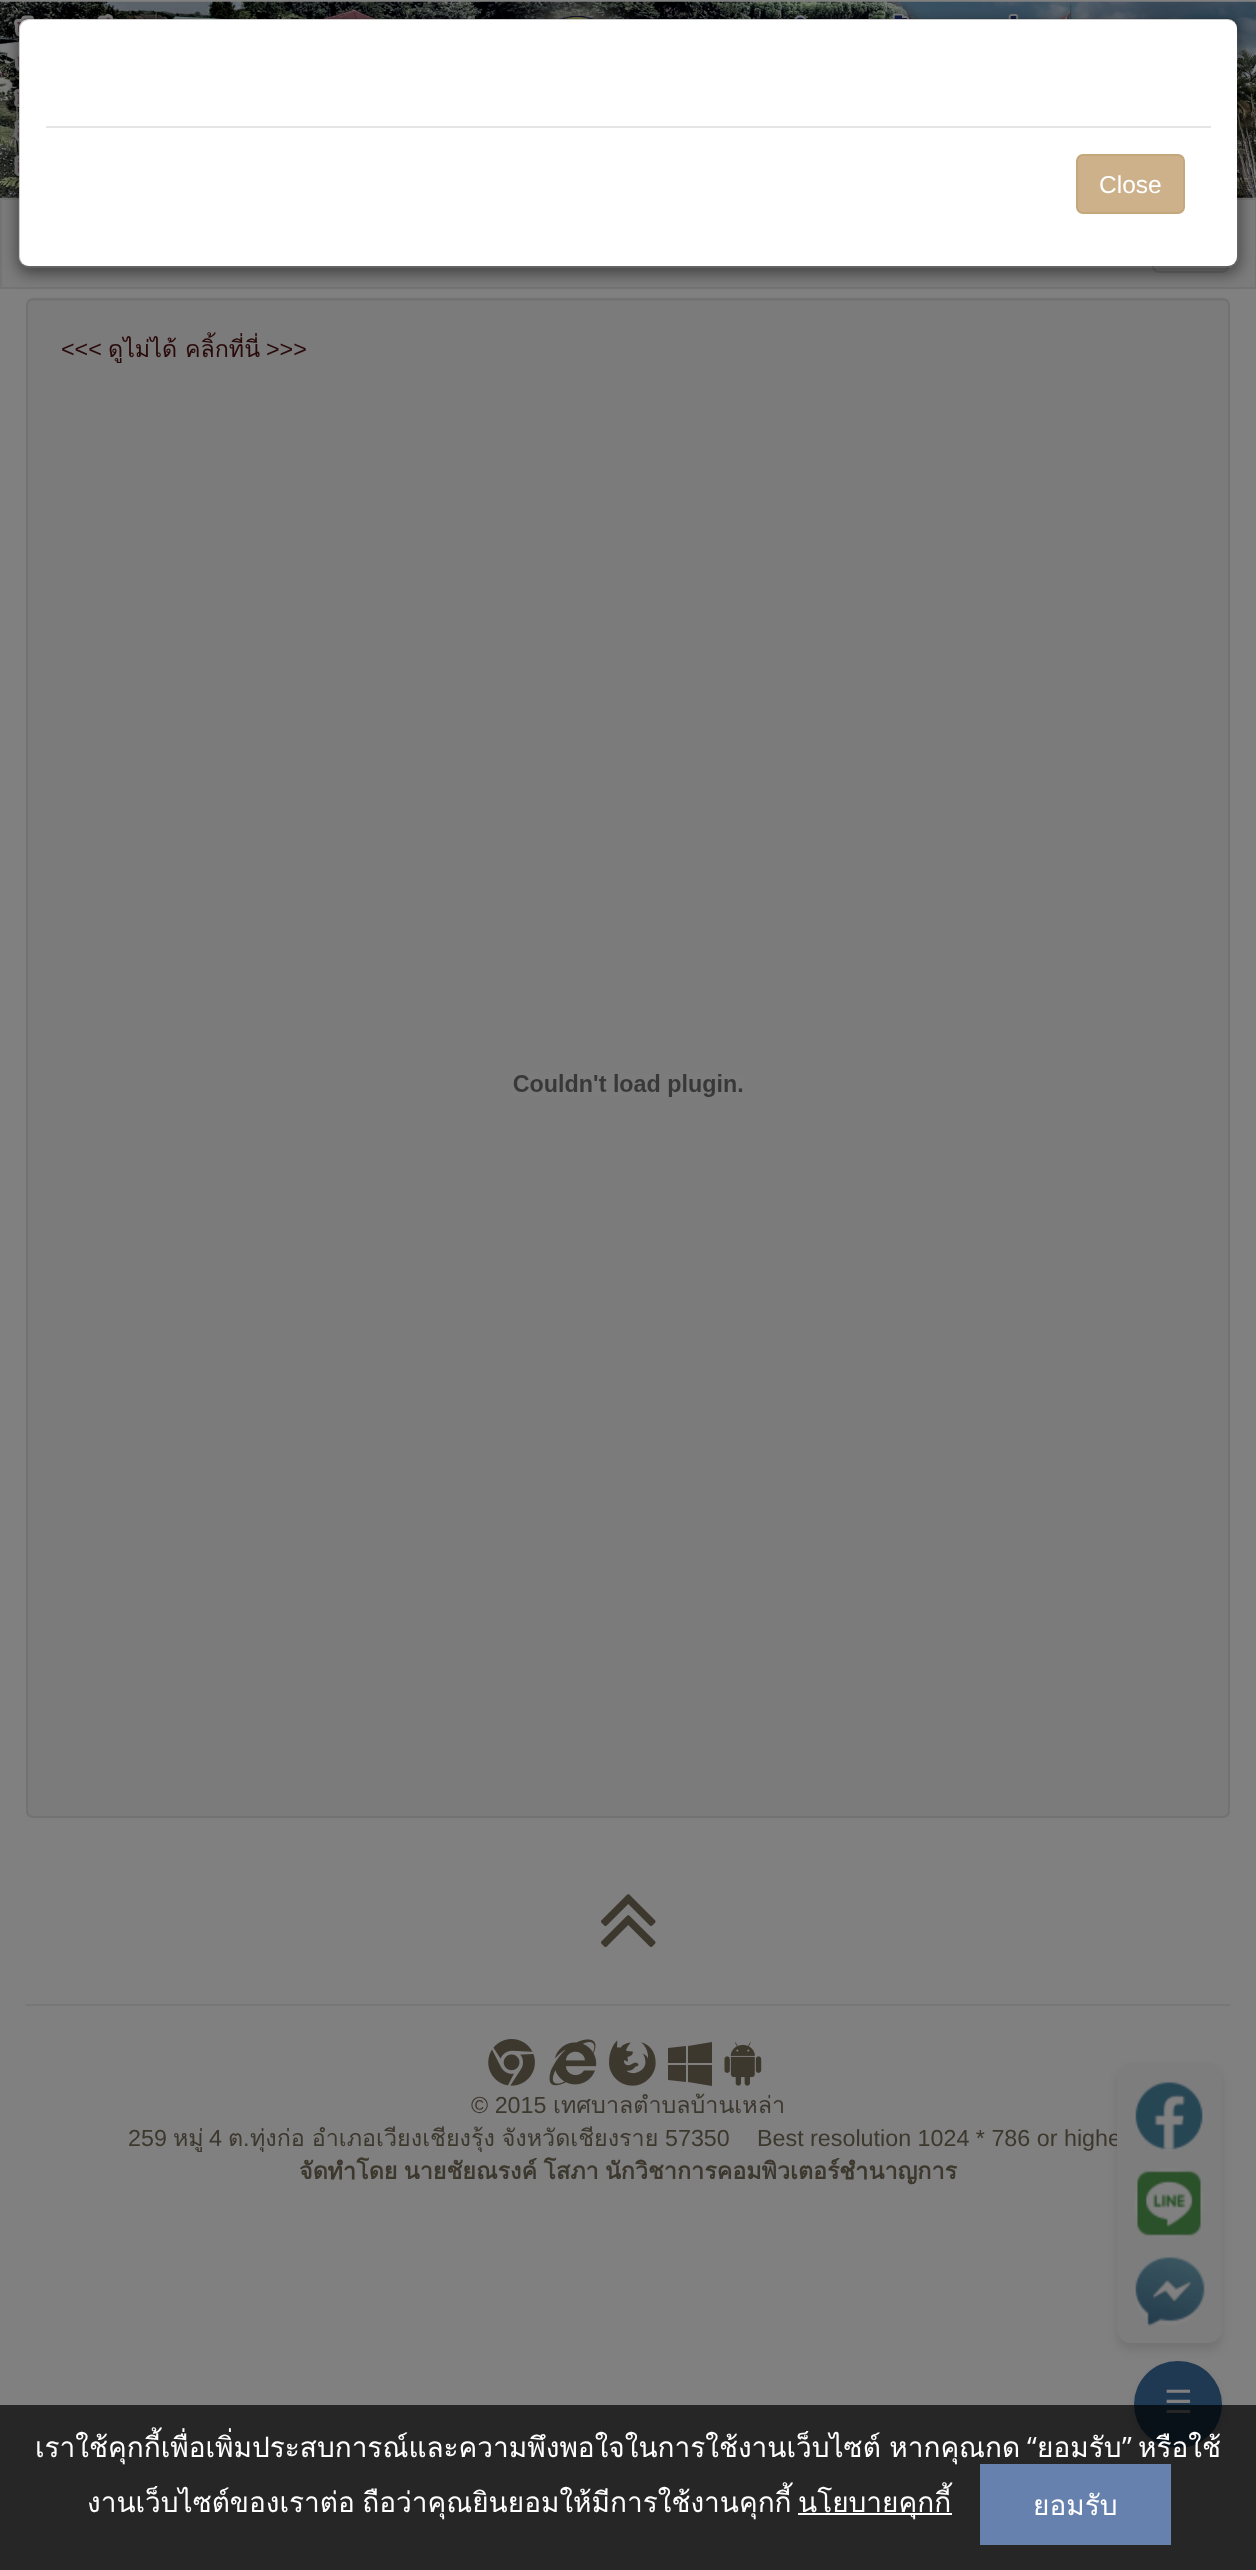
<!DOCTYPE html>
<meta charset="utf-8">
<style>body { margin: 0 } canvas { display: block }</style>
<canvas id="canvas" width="1256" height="2570"></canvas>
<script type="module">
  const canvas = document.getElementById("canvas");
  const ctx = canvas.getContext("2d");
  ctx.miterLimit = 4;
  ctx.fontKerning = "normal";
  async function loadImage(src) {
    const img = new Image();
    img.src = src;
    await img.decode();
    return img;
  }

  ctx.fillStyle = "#808080";
  ctx.fillRect(0, 0, 1256, 2570);
  ctx.drawImage(await loadImage("img1.png"), 0, 1, 1256, 197);
  ctx.fillStyle = "#7c7c7c";
  ctx.beginPath();
  ctx.rect(1, 199, 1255, 89);
  ctx.fill();
  ctx.strokeStyle = "#747474";
  ctx.lineWidth = 2;
  ctx.stroke();
  ctx.beginPath();
  ctx.roundRect(1153, 215, 75, 57, 6);
  ctx.strokeStyle = "#6f6f6f";
  ctx.stroke();
  ctx.save();
  ctx.beginPath();
  ctx.moveTo(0, 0);
  ctx.lineTo(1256, 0);
  ctx.lineTo(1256, 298);
  ctx.lineTo(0, 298);
  ctx.closePath();
  ctx.moveTo(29, 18);
  ctx.lineTo(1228, 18);
  ctx.bezierCurveTo(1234, 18, 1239, 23, 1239, 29);
  ctx.lineTo(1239, 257);
  ctx.bezierCurveTo(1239, 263, 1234, 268, 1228, 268);
  ctx.lineTo(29, 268);
  ctx.bezierCurveTo(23, 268, 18, 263, 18, 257);
  ctx.lineTo(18, 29);
  ctx.bezierCurveTo(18, 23, 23, 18, 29, 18);
  ctx.closePath();
  ctx.clip("evenodd");
  ctx.fillStyle = "rgba(0, 0, 0, 0.5)";
  ctx.filter = "blur(8px)";
  ctx.beginPath();
  ctx.roundRect(18, 23, 1221, 250, 11);
  ctx.fill();
  ctx.filter = "none";
  ctx.restore();
  ctx.fillStyle = "#ffffff";
  ctx.beginPath();
  ctx.roundRect(19, 19, 1218, 247, 9);
  ctx.fill();
  ctx.beginPath();
  ctx.roundRect(19, 19, 1219, 248, 10);
  ctx.strokeStyle = "rgba(0, 0, 0, 0.2)";
  ctx.stroke();
  ctx.fillStyle = "#e5e5e5";
  ctx.fillRect(46, 126, 1165, 2);
  ctx.fillStyle = "#ccb18b";
  ctx.beginPath();
  ctx.roundRect(1077, 155, 107, 58, 6);
  ctx.fill();
  ctx.strokeStyle = "#c5a77c";
  ctx.stroke();
  ctx.font = "24.5px Liberation Sans";
  ctx.fillStyle = "#ffffff";
  ctx.fillText("Close", 1099, 193);
  ctx.fillStyle = "#7b7b7b";
  ctx.beginPath();
  ctx.roundRect(26, 298, 1204, 1520, 7);
  ctx.fill();
  ctx.fillStyle = "#757575";
  ctx.beginPath();
  ctx.moveTo(33, 301);
  ctx.lineTo(1223, 301);
  ctx.bezierCurveTo(1226, 301, 1228, 303, 1228, 306);
  ctx.lineTo(1228, 1813);
  ctx.lineTo(1227, 1816);
  ctx.bezierCurveTo(1228, 1815, 1229, 1813, 1229, 1812);
  ctx.lineTo(1229, 304);
  ctx.bezierCurveTo(1229, 301, 1227, 299, 1224, 299);
  ctx.lineTo(33, 299);
  ctx.bezierCurveTo(30, 299, 28, 301, 28, 304);
  ctx.lineTo(28, 306);
  ctx.bezierCurveTo(28, 303, 30, 301, 33, 301);
  ctx.closePath();
  ctx.fill();
  ctx.beginPath();
  ctx.roundRect(27, 299, 1202, 1518, 6);
  ctx.strokeStyle = "#727272";
  ctx.stroke();
  ctx.font = "23.3px Liberation Sans";
  ctx.fillStyle = "#290a0a";
  ctx.fillText("<<<", 61, 357);
  ctx.font = "23.3px Loma";
  ctx.fillText("ดูไม่ได้ คลิ้กที่นี่", 108, 357);
  ctx.font = "23.3px Liberation Sans";
  ctx.fillText(">>>", 266, 357);
  ctx.drawImage(await loadImage("img2.png"), 513, 1074, 230, 23);
  ctx.drawImage(await loadImage("img3.png"), 601, 1894, 55, 53);
  ctx.fillStyle = "#777777";
  ctx.fillRect(26, 2004, 1204, 2);
  ctx.drawImage(await loadImage("img4.png"), 488, 2039, 47, 47);
  ctx.drawImage(await loadImage("img5.png"), 549, 2039, 48, 47);
  ctx.drawImage(await loadImage("img6.png"), 609, 2040, 47, 46);
  ctx.fillStyle = "#3d382e";
  ctx.beginPath();
  ctx.moveTo(686, 2065);
  ctx.lineTo(686, 2082);
  ctx.lineTo(668, 2080);
  ctx.lineTo(668, 2065);
  ctx.closePath();
  ctx.moveTo(686, 2046);
  ctx.lineTo(686, 2063);
  ctx.lineTo(668, 2063);
  ctx.lineTo(668, 2048);
  ctx.closePath();
  ctx.moveTo(712, 2065);
  ctx.lineTo(712, 2086);
  ctx.lineTo(688, 2082);
  ctx.lineTo(688, 2065);
  ctx.closePath();
  ctx.moveTo(712, 2042);
  ctx.lineTo(712, 2063);
  ctx.lineTo(688, 2063);
  ctx.lineTo(688, 2046);
  ctx.closePath();
  ctx.fill();
  ctx.drawImage(await loadImage("img7.png"), 724, 2042, 38, 44);
  ctx.fillText("© 2015", 471, 2113);
  ctx.font = "23.3px Loma";
  ctx.fillText("เทศบาลตำบลบ้านเหล่า", 553, 2113);
  ctx.font = "23.3px Liberation Sans";
  ctx.fillText("259", 128, 2146);
  ctx.font = "23.3px Loma";
  ctx.fillText("หมู่", 173, 2146);
  ctx.font = "23.3px Liberation Sans";
  ctx.fillText("4", 209, 2146);
  ctx.font = "23.3px Loma";
  ctx.fillText("ต", 228, 2146);
  ctx.font = "23.3px Liberation Sans";
  ctx.fillText(".", 243, 2146);
  ctx.wordSpacing = "-1px";
  ctx.font = "23.3px Loma";
  ctx.fillText("ทุ่งก่อ อำเภอเวียงเชียงรุ้ง จังหวัดเชียงราย", 250, 2146);
  ctx.wordSpacing = "0px";
  ctx.font = "23.3px Liberation Sans";
  ctx.fillText("57350", 665, 2146);
  ctx.fillText("Best resolution 1024 * 786 or highe", 757, 2146);
  ctx.wordSpacing = "-1.5px";
  ctx.font = "bold 23.3px Loma";
  ctx.fillText("จัดทำโดย นายชัยณรงค์ โสภา นักวิชาการคอมพิวเตอร์ชำนาญการ", 299, 2179);
  ctx.fillStyle = "rgba(0, 0, 0, 0.1)";
  ctx.filter = "blur(5px)";
  ctx.beginPath();
  ctx.roundRect(1117, 2070, 105, 280, 14);
  ctx.fill();
  ctx.filter = "none";
  ctx.fillStyle = "#7d7d7d";
  ctx.beginPath();
  ctx.roundRect(1117, 2063, 105, 280, 14);
  ctx.fill();
  ctx.fillStyle = "#808080";
  ctx.beginPath();
  ctx.arc(1169, 2116, 35, 0, Math.PI * 2);
  ctx.fill();
  ctx.drawImage(await loadImage("img8.png"), 1135, 2081, 68, 69);
  ctx.beginPath();
  ctx.arc(1169, 2203, 35, 0, Math.PI * 2);
  ctx.fill();
  ctx.drawImage(await loadImage("img9.png"), 1137, 2170, 64, 66);
  ctx.beginPath();
  ctx.arc(1169, 2291, 35, 0, Math.PI * 2);
  ctx.fill();
  ctx.drawImage(await loadImage("img10.png"), 1135, 2256, 70, 71);
  ctx.fillStyle = "rgba(0, 0, 0, 0.1)";
  ctx.filter = "blur(5px)";
  ctx.beginPath();
  ctx.roundRect(1134, 2368, 88, 87, 43.5);
  ctx.fill();
  ctx.filter = "none";
  ctx.fillStyle = "#203953";
  ctx.beginPath();
  ctx.roundRect(1134, 2361, 88, 87, 43.5);
  ctx.fill();
  ctx.wordSpacing = "0px";
  ctx.font = "32px DejaVu Sans";
  ctx.fillStyle = "#808080";
  ctx.fillText("☰", 1164, 2413);
  ctx.fillStyle = "rgba(0, 0, 0, 0.7)";
  ctx.fillRect(0, 2405, 1256, 165);
  ctx.wordSpacing = "-1px";
  ctx.font = "28px Loma";
  ctx.fillStyle = "#ffffff";
  ctx.fillText("เราใช้คุกกี้เพื่อเพิ่มประสบการณ์และความพึงพอใจในการใช้งานเว็บไซต์ หากคุณกด", 35, 2457);
  ctx.wordSpacing = "0px";
  ctx.font = "28px Open Sans";
  ctx.fillText("“", 1027, 2457);
  ctx.font = "28px Loma";
  ctx.fillText("ยอมรับ", 1037, 2457);
  ctx.font = "28px Open Sans";
  ctx.fillText("”", 1122, 2457);
  ctx.font = "28px Loma";
  ctx.fillText("หรือใช้", 1138, 2457);
  ctx.wordSpacing = "-2px";
  ctx.fillText("งานเว็บไซต์ของเราต่อ ถือว่าคุณยินยอมให้มีการใช้งานคุกกี้", 87, 2512);
  ctx.fillRect(798, 2513, 154, 2);
  ctx.wordSpacing = "0px";
  ctx.fillText("นโยบายคุกกี้", 798, 2512);
  ctx.fillStyle = "#6681ae";
  ctx.fillRect(980, 2464, 191, 81);
  ctx.fillStyle = "#ffffff";
  ctx.fillText("ยอมรับ", 1033, 2515);
</script>
